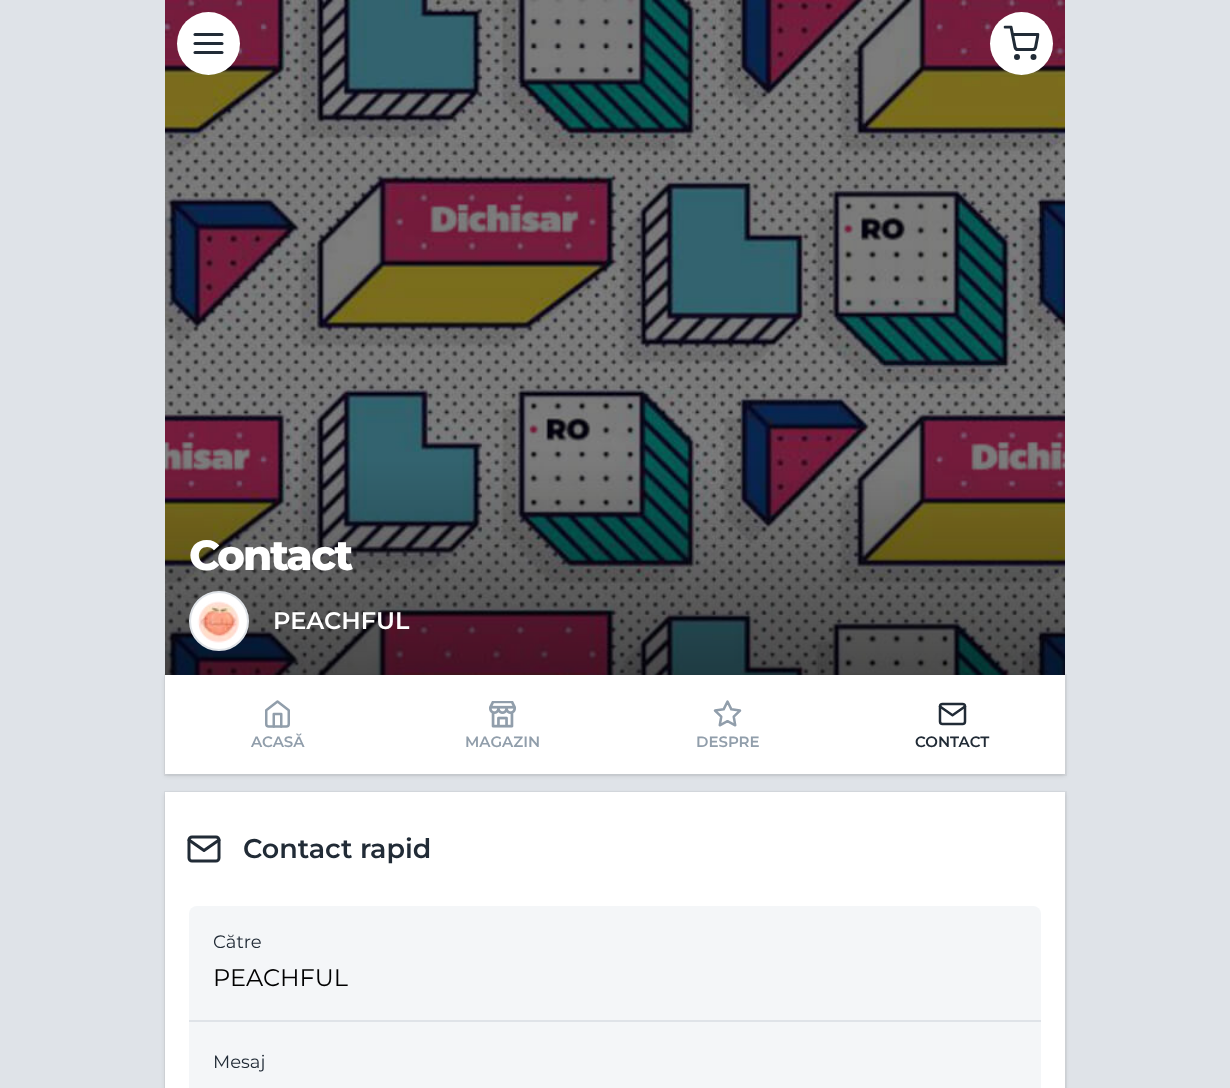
<!DOCTYPE html>
<meta charset="utf-8">
<style>body { margin: 0 } canvas { display: block }</style>
<canvas id="canvas" width="1230" height="1088"></canvas>
<script type="module">
  const canvas = document.getElementById("canvas");
  const ctx = canvas.getContext("2d");
  ctx.miterLimit = 4;
  ctx.fontKerning = "normal";
  async function loadImage(src) {
    const img = new Image();
    img.src = src;
    await img.decode();
    return img;
  }

  ctx.fillStyle = "#dfe3e8";
  ctx.fillRect(0, 0, 1230, 1088);
  ctx.drawImage(await loadImage("img3.png"), 165, 0, 900, 675);
  ctx.fillStyle = "#ffffff";
  ctx.beginPath();
  ctx.arc(208.5, 43.5, 31.5, 0, Math.PI * 2);
  ctx.fill();
  ctx.drawImage(await loadImage("img1.png"), 193, 33, 31, 21);
  ctx.beginPath();
  ctx.arc(1021.5, 43.5, 31.5, 0, Math.PI * 2);
  ctx.fill();
  ctx.drawImage(await loadImage("img2.png"), 1003, 25, 37, 35);
  ctx.letterSpacing = "-2px";
  ctx.font = "800 42px Montserrat";
  ctx.fillText("Contact", 189, 570);
  ctx.beginPath();
  ctx.arc(219, 621, 29, 0, Math.PI * 2);
  ctx.fill();
  ctx.strokeStyle = "#dfe3e8";
  ctx.lineWidth = 2;
  ctx.stroke();
  ctx.drawImage(await loadImage("img4.png"), 197, 601, 43, 42);
  ctx.letterSpacing = "0px";
  ctx.font = "600 24px Montserrat";
  ctx.fillText("PEACHFUL", 273, 629);
  ctx.fillStyle = "rgba(63, 63, 68, 0.15)";
  ctx.filter = "blur(2px)";
  ctx.beginPath();
  ctx.rect(165, 677, 900, 99);
  ctx.fill();
  ctx.filter = "none";
  ctx.strokeStyle = "rgba(63, 63, 68, 0.05)";
  ctx.strokeRect(165, 675, 901, 100);
  ctx.fillStyle = "#ffffff";
  ctx.fillRect(165, 675, 900, 99);
  ctx.drawImage(await loadImage("img5.png"), 265, 700, 25, 28);
  ctx.font = "600 15px Montserrat";
  ctx.fillStyle = "#919eab";
  ctx.fillText("ACASĂ", 251, 747);
  ctx.drawImage(await loadImage("img6.png"), 489, 701, 27, 27);
  ctx.fillText("MAGAZIN", 465, 747);
  ctx.drawImage(await loadImage("img7.png"), 713, 700, 29, 27);
  ctx.fillText("DESPRE", 696, 747);
  ctx.drawImage(await loadImage("img8.png"), 938, 702, 29, 24);
  ctx.fillStyle = "#212b36";
  ctx.fillText("CONTACT", 915, 747);
  ctx.fillStyle = "rgba(63, 63, 68, 0.15)";
  ctx.filter = "blur(2px)";
  ctx.beginPath();
  ctx.rect(165, 794, 900, 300);
  ctx.fill();
  ctx.filter = "none";
  ctx.strokeRect(165, 792, 901, 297);
  ctx.fillStyle = "#ffffff";
  ctx.fillRect(165, 792, 900, 296);
  ctx.drawImage(await loadImage("img9.png"), 187, 835, 34, 28);
  ctx.font = "600 27px Montserrat";
  ctx.fillStyle = "#212b36";
  ctx.fillText("Contact rapid", 243, 858);
  ctx.fillStyle = "#f4f6f8";
  ctx.beginPath();
  ctx.roundRect(189, 906, 852, 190, 8);
  ctx.fill();
  ctx.font = "18px Montserrat";
  ctx.fillStyle = "#212b36";
  ctx.fillText("Către", 213, 948);
  ctx.font = "24px Montserrat";
  ctx.fillStyle = "#000000";
  ctx.fillText("PEACHFUL", 213, 986);
  ctx.fillStyle = "#dfe3e8";
  ctx.fillRect(189, 1020, 852, 2);
  ctx.font = "18px Montserrat";
  ctx.fillStyle = "#212b36";
  ctx.fillText("Mesaj", 213, 1068);
</script>
